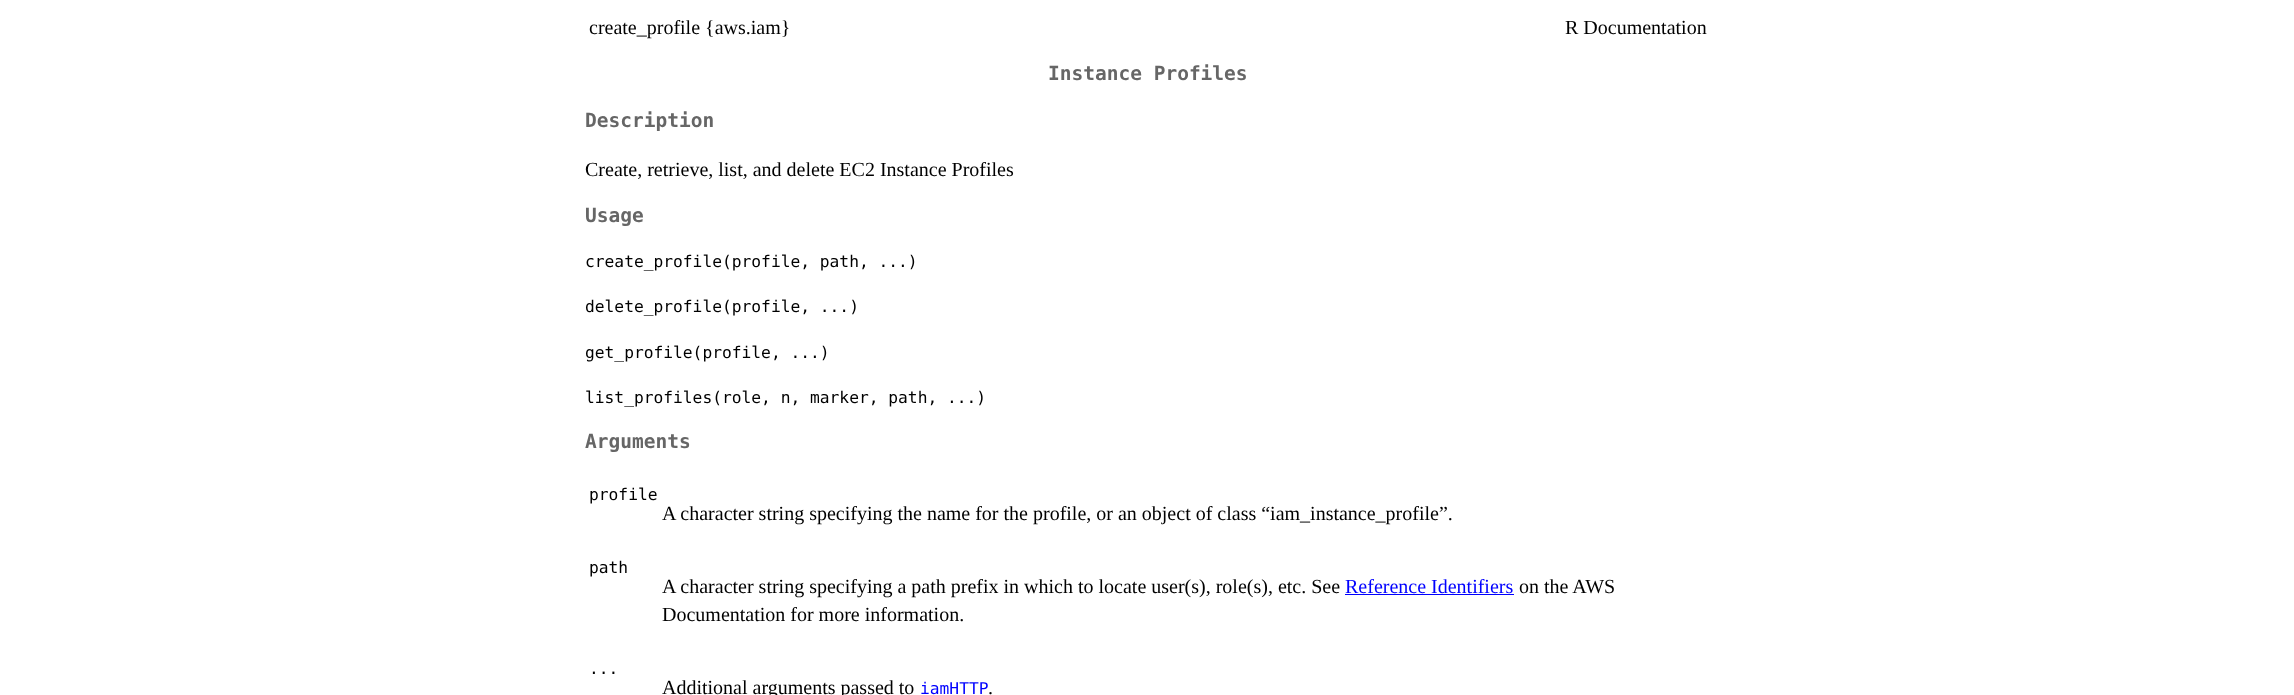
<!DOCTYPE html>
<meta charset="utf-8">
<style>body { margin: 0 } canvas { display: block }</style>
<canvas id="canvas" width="2294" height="695"></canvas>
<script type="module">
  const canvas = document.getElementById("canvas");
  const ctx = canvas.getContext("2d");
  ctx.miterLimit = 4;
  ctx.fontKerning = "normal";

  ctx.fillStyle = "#ffffff";
  ctx.fillRect(0, 0, 2294, 695);
  ctx.font = "20px Liberation Serif";
  ctx.fillStyle = "#000000";
  ctx.fillText("create_profile {aws.iam}", 589, 34);
  ctx.fillText("R Documentation", 1565, 34);
  ctx.font = "bold 19.5px DejaVu Sans Mono";
  ctx.fillStyle = "#666666";
  ctx.fillText("Instance Profiles", 1048, 80);
  ctx.fillText("Description", 585, 127);
  ctx.font = "20px Liberation Serif";
  ctx.fillStyle = "#000000";
  ctx.fillText("Create, retrieve, list, and delete EC2 Instance Profiles", 585, 176);
  ctx.font = "bold 19.5px DejaVu Sans Mono";
  ctx.fillStyle = "#666666";
  ctx.fillText("Usage", 585, 222);
  ctx.font = "16.25px DejaVu Sans Mono";
  ctx.fillStyle = "#000000";
  ctx.fillText("create_profile(profile, path, ...)", 585, 267);
  ctx.fillText("delete_profile(profile, ...)", 585, 312);
  ctx.fillText("get_profile(profile, ...)", 585, 358);
  ctx.fillText("list_profiles(role, n, marker, path, ...)", 585, 403);
  ctx.font = "bold 19.5px DejaVu Sans Mono";
  ctx.fillStyle = "#666666";
  ctx.fillText("Arguments", 585, 448);
  ctx.font = "16.25px DejaVu Sans Mono";
  ctx.fillStyle = "#000000";
  ctx.fillText("profile", 589, 500);
  ctx.font = "20px Liberation Serif";
  ctx.fillText("A character string specifying the name for the profile, or an object of class “iam_instance_profile”.", 662, 520);
  ctx.font = "16.25px DejaVu Sans Mono";
  ctx.fillText("path", 589, 573);
  ctx.font = "20px Liberation Serif";
  ctx.fillText("A character string specifying a path prefix in which to locate user(s), role(s), etc. See", 662, 593);
  ctx.fillStyle = "#0000ff";
  ctx.fillText("Reference Identifiers", 1345, 593);
  ctx.fillRect(1345, 594, 169, 1);
  ctx.fillStyle = "#000000";
  ctx.fillText("on the AWS", 1519, 593);
  ctx.fillText("Documentation for more information.", 662, 621);
  ctx.font = "16.25px DejaVu Sans Mono";
  ctx.fillText("...", 589, 674);
  ctx.font = "20px Liberation Serif";
  ctx.fillText("Additional arguments passed to", 662, 694);
  ctx.font = "16.25px DejaVu Sans Mono";
  ctx.fillStyle = "#0000ff";
  ctx.fillText("iamHTTP", 920, 694);
  ctx.font = "20px Liberation Serif";
  ctx.fillStyle = "#000000";
  ctx.fillText(".", 988, 694);
</script>
